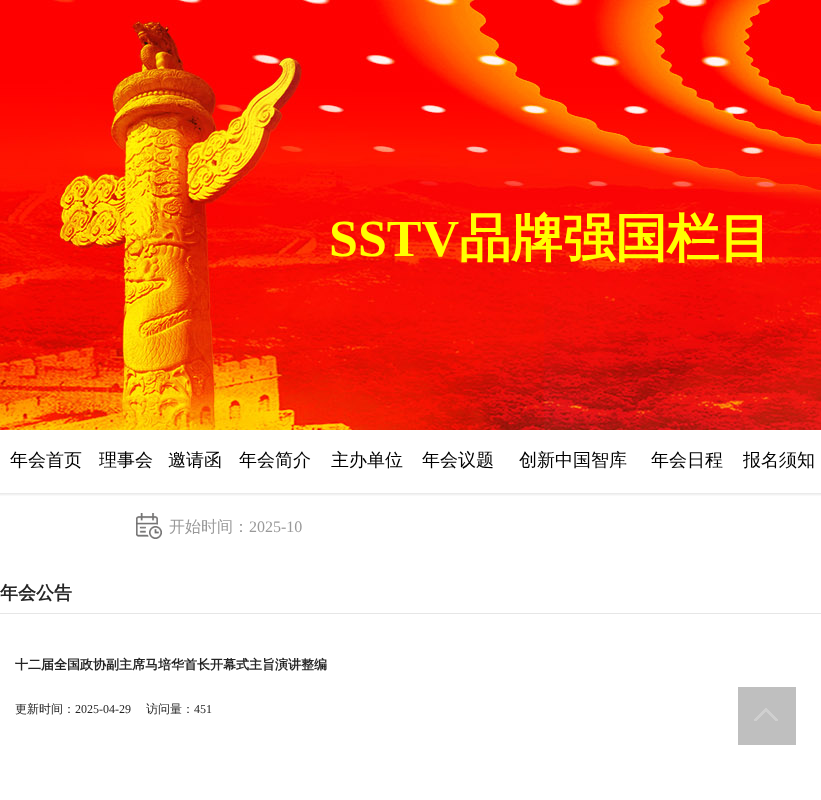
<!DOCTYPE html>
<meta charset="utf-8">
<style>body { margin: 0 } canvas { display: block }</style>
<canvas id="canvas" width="821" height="800"></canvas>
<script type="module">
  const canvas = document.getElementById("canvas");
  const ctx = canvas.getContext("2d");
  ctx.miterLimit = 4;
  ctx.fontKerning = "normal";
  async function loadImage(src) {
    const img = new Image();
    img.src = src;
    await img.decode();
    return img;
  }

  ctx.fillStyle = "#ffffff";
  ctx.fillRect(0, 0, 821, 800);
  ctx.drawImage(await loadImage("img1.png"), 0, 0, 821, 430);
  ctx.font = "bold 52px Liberation Serif";
  ctx.fillStyle = "#ffff00";
  ctx.fillText("SSTV", 329, 256);
  ctx.font = "bold 52px WenQuanYi Zen Hei";
  ctx.fillText("品牌强国栏目", 459, 256);
  ctx.drawImage(await loadImage("img2.png"), 0, 430, 821, 66);
  ctx.font = "500 18px WenQuanYi Zen Hei";
  ctx.fillStyle = "#000000";
  ctx.fillText("年会首页", 10, 466);
  ctx.fillText("理事会", 99, 466);
  ctx.fillText("邀请函", 168, 466);
  ctx.fillText("年会简介", 239, 466);
  ctx.fillText("主办单位", 331, 466);
  ctx.fillText("年会议题", 422, 466);
  ctx.fillText("创新中国智库", 519, 466);
  ctx.fillText("年会日程", 651, 466);
  ctx.fillText("报名须知", 743, 466);
  ctx.drawImage(await loadImage("img3.png"), 136, 513, 26, 26);
  ctx.font = "500 16px WenQuanYi Zen Hei";
  ctx.fillStyle = "#999999";
  ctx.fillText("开始时间：", 169, 532);
  ctx.font = "16px Liberation Serif";
  ctx.fillText("2025-10", 249, 532);
  ctx.font = "bold 18px WenQuanYi Zen Hei";
  ctx.fillStyle = "#252525";
  ctx.fillText("年会公告", 0, 599);
  ctx.fillStyle = "#e6e6e6";
  ctx.fillRect(0, 613, 821, 1);
  ctx.font = "bold 13px WenQuanYi Zen Hei";
  ctx.fillStyle = "#252525";
  ctx.fillText("十二届全国政协副主席马培华首长开幕式主旨演讲整编", 15, 669);
  ctx.font = "500 12px WenQuanYi Zen Hei";
  ctx.fillText("更新时间：", 15, 713);
  ctx.font = "12px Liberation Serif";
  ctx.fillText("2025-04-29", 75, 713);
  ctx.font = "500 12px WenQuanYi Zen Hei";
  ctx.fillText("访问量：", 146, 713);
  ctx.font = "12px Liberation Serif";
  ctx.fillText("451", 194, 713);
  ctx.fillStyle = "#bfbfbf";
  ctx.fillRect(738, 687, 58, 58);
  ctx.drawImage(await loadImage("img4.png"), 754, 708, 24, 13);
</script>
